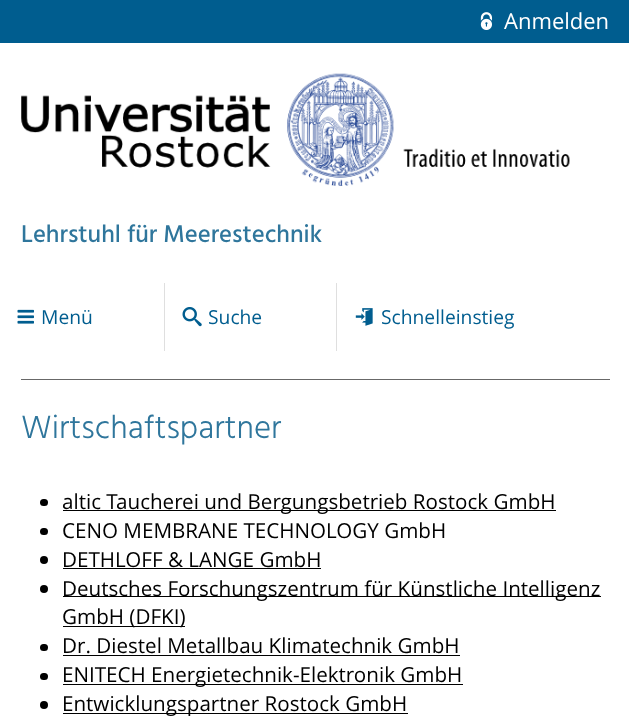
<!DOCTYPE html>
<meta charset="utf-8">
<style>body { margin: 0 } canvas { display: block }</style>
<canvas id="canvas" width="629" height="716"></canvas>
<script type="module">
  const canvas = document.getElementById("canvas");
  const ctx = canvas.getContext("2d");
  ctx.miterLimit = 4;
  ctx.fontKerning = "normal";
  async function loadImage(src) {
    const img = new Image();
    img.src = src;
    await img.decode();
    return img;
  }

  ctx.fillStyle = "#ffffff";
  ctx.fillRect(0, 0, 629, 716);
  ctx.fillStyle = "#005d8f";
  ctx.fillRect(0, 0, 629, 43);
  ctx.drawImage(await loadImage("img1.png"), 480, 12, 13, 18);
  ctx.font = "22px Open Sans";
  ctx.fillStyle = "#ffffff";
  ctx.fillText("Anmelden", 504, 29);
  ctx.drawImage(await loadImage("img2.png"), 21, 73, 549, 113);
  ctx.font = "500 24.75px Hind";
  ctx.fillStyle = "#2f769c";
  ctx.fillText("Lehrstuhl für Meerestechnik", 21, 242);
  ctx.drawImage(await loadImage("img3.png"), 17, 309, 17, 15);
  ctx.font = "19.25px Open Sans";
  ctx.fillStyle = "#005d8f";
  ctx.fillText("Menü", 41, 324);
  ctx.fillStyle = "#dfdfdf";
  ctx.fillRect(164, 283, 1, 68);
  ctx.drawImage(await loadImage("img4.png"), 182, 307, 20, 20);
  ctx.fillStyle = "#005d8f";
  ctx.fillText("Suche", 208, 324);
  ctx.fillStyle = "#dfdfdf";
  ctx.fillRect(336, 283, 1, 68);
  ctx.drawImage(await loadImage("img5.png"), 355, 308, 18, 18);
  ctx.fillStyle = "#005d8f";
  ctx.fillText("Schnelleinstieg", 381, 324);
  ctx.fillStyle = "#686868";
  ctx.fillRect(21, 379, 589, 1);
  ctx.font = "300 33px Hind";
  ctx.fillStyle = "#2f769c";
  ctx.fillText("Wirtschaftspartner", 21, 438);
  ctx.fillStyle = "#000000";
  ctx.beginPath();
  ctx.roundRect(40, 499, 8, 7, 3.5);
  ctx.fill();
  ctx.fillRect(63, 510, 493, 1);
  ctx.font = "20.6px Open Sans";
  ctx.fillText("altic Taucherei und Bergungsbetrieb Rostock GmbH", 62, 509);
  ctx.beginPath();
  ctx.roundRect(40, 528, 8, 7, 3.5);
  ctx.fill();
  ctx.fillText("CENO MEMBRANE TECHNOLOGY GmbH", 62, 538);
  ctx.beginPath();
  ctx.arc(44, 560, 4, 0, Math.PI * 2);
  ctx.fill();
  ctx.fillText("DETHLOFF & LANGE GmbH", 62, 567);
  ctx.fillRect(63, 568, 258, 1);
  ctx.beginPath();
  ctx.arc(44, 589, 4, 0, Math.PI * 2);
  ctx.fill();
  ctx.fillRect(63, 596, 538, 1);
  ctx.fillText("Deutsches Forschungszentrum für Künstliche Intelligenz", 62, 596);
  ctx.fillRect(63, 626, 122, 1);
  ctx.fillText("GmbH (DFKI)", 62, 624);
  ctx.beginPath();
  ctx.roundRect(40, 644, 8, 7, 3.5);
  ctx.fill();
  ctx.fillText("Dr. Diestel Metallbau Klimatechnik GmbH", 62, 653);
  ctx.fillRect(63, 655, 397, 1);
  ctx.beginPath();
  ctx.roundRect(40, 673, 8, 7, 3.5);
  ctx.fill();
  ctx.fillRect(63, 684, 400, 1);
  ctx.fillText("ENITECH Energietechnik-Elektronik GmbH", 62, 682);
  ctx.beginPath();
  ctx.arc(44, 705, 4, 0, Math.PI * 2);
  ctx.fill();
  ctx.fillRect(63, 713, 345, 1);
  ctx.fillText("Entwicklungspartner Rostock GmbH", 62, 711);
</script>
